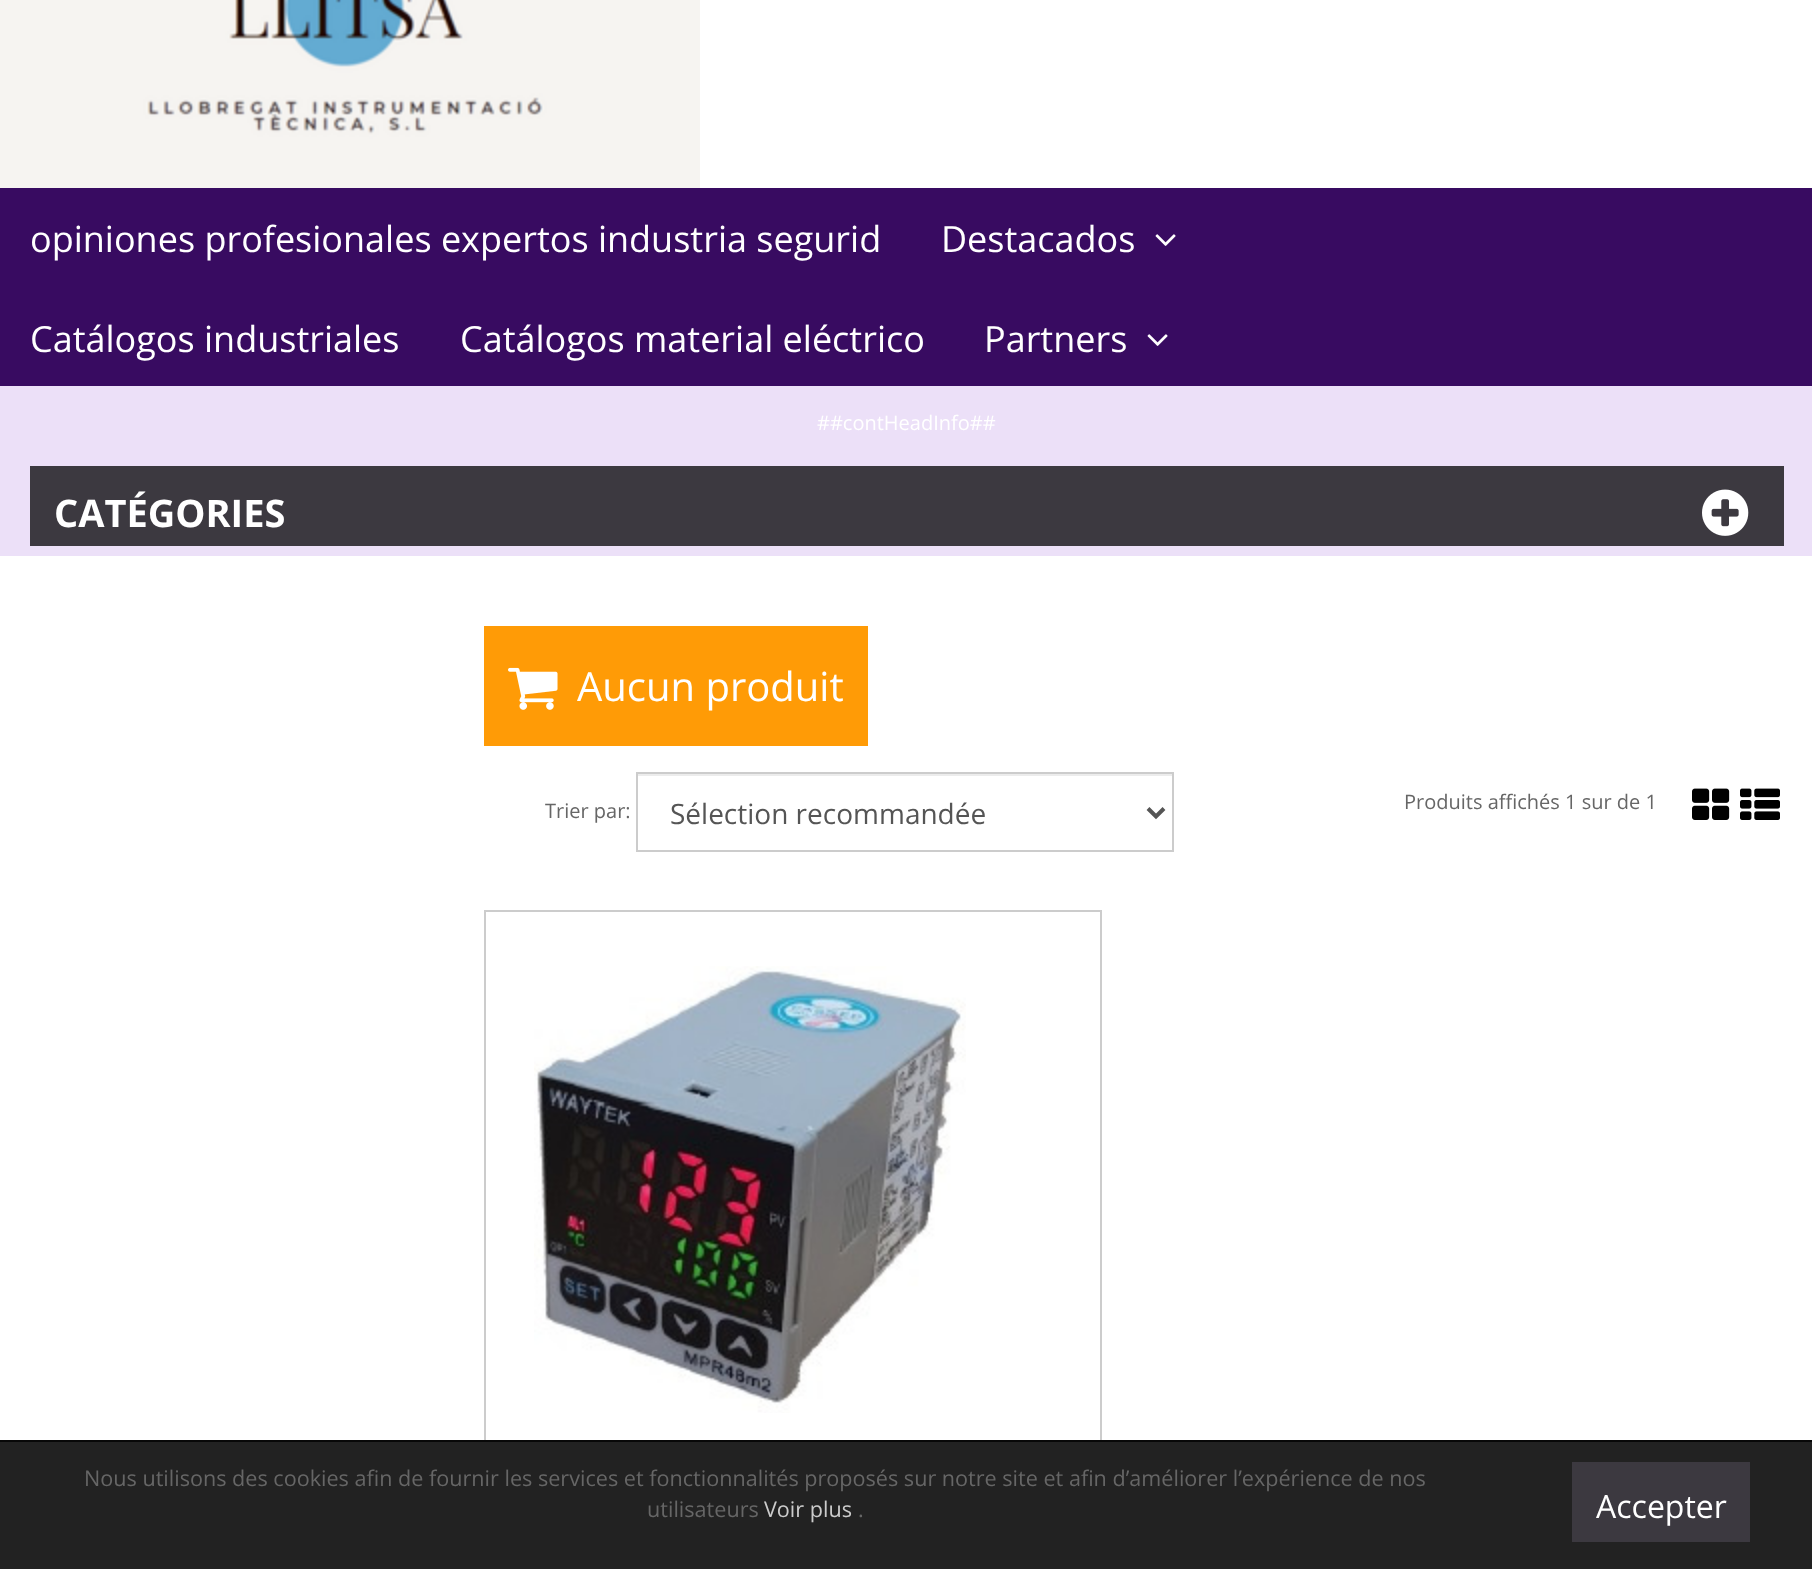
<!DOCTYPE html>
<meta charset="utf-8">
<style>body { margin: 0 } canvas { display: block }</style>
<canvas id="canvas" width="1812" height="1569"></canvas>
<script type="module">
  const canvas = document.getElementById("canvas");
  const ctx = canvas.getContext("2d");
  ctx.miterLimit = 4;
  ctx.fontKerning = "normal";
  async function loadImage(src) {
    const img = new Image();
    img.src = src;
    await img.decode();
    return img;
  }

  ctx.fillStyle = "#ffffff";
  ctx.fillRect(0, 0, 1812, 1569);
  ctx.drawImage(await loadImage("img1.png"), 0, 0, 700, 188);
  ctx.fillStyle = "#ece0f8";
  ctx.fillRect(0, 386, 1812, 170);
  ctx.fillStyle = "#380b61";
  ctx.fillRect(0, 188, 1812, 198);
  ctx.font = "36px Open Sans";
  ctx.fillStyle = "#ffffff";
  ctx.fillText("opiniones profesionales expertos industria segurid", 30, 252);
  ctx.fillText("Destacados", 941, 252);
  ctx.drawImage(await loadImage("img2.png"), 1155, 234, 21, 12);
  ctx.fillText("Catálogos industriales", 30, 352);
  ctx.fillText("Catálogos material eléctrico", 460, 352);
  ctx.fillText("Partners", 984, 352);
  ctx.drawImage(await loadImage("img2.png"), 1147, 334, 21, 12);
  ctx.font = "20px Open Sans";
  ctx.fillText("##contHeadInfo##", 817, 430);
  ctx.fillStyle = "#3c3940";
  ctx.fillRect(30, 466, 1754, 80);
  ctx.font = "bold 38px Open Sans";
  ctx.fillStyle = "#ffffff";
  ctx.fillText("CATÉGORIES", 54, 527);
  ctx.drawImage(await loadImage("img3.png"), 1702, 489, 47, 47);
  ctx.fillStyle = "#ff9b06";
  ctx.fillRect(484, 626, 384, 120);
  ctx.drawImage(await loadImage("img4.png"), 508, 667, 50, 43);
  ctx.font = "40px Open Sans";
  ctx.fillStyle = "#ffffff";
  ctx.fillText("Aucun produit", 577, 701);
  ctx.font = "20px Open Sans";
  ctx.fillStyle = "#666666";
  ctx.fillText("Trier par:", 545, 818);
  ctx.fillStyle = "#ececec";
  ctx.fillRect(638, 774, 534, 2);
  ctx.strokeStyle = "#cccccc";
  ctx.lineWidth = 2;
  ctx.strokeRect(637, 773, 536, 78);
  ctx.beginPath();
  ctx.moveTo(1148, 808.5);
  ctx.lineTo(1156, 816.5);
  ctx.lineTo(1164, 808.5);
  ctx.strokeStyle = "#555555";
  ctx.lineWidth = 4;
  ctx.stroke();
  ctx.font = "28px Open Sans";
  ctx.fillStyle = "#555555";
  ctx.fillText("Sélection recommandée", 670, 824);
  ctx.font = "20px Open Sans";
  ctx.fillStyle = "#666666";
  ctx.fillText("Produits affichés 1 sur de 1", 1404, 809);
  ctx.drawImage(await loadImage("img5.png"), 1692, 788, 38, 32);
  ctx.drawImage(await loadImage("img6.png"), 1740, 788, 40, 32);
  ctx.strokeStyle = "#cccccc";
  ctx.lineWidth = 2;
  ctx.strokeRect(485, 911, 616, 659);
  ctx.drawImage(await loadImage("img7.png"), 534, 966, 432, 447);
  ctx.fillStyle = "#222222";
  ctx.fillRect(0, 1442, 1812, 127);
  ctx.fillStyle = "#080808";
  ctx.fillRect(0, 1440, 1812, 2);
  ctx.font = "21.6px Open Sans";
  ctx.fillStyle = "#666666";
  ctx.fillText("Nous utilisons des cookies afin de fournir les services et fonctionnalités proposés sur notre site et afin d’améliorer l’expérience de nos", 84, 1486);
  ctx.fillText("utilisateurs", 647, 1517);
  ctx.fillStyle = "#cccccc";
  ctx.fillText("Voir plus", 764, 1517);
  ctx.fillStyle = "#666666";
  ctx.fillText(".", 858, 1517);
  ctx.fillStyle = "#3c3940";
  ctx.fillRect(1572, 1462, 178, 80);
  ctx.font = "32px Open Sans";
  ctx.fillStyle = "#ffffff";
  ctx.fillText("Accepter", 1596, 1518);
</script>
